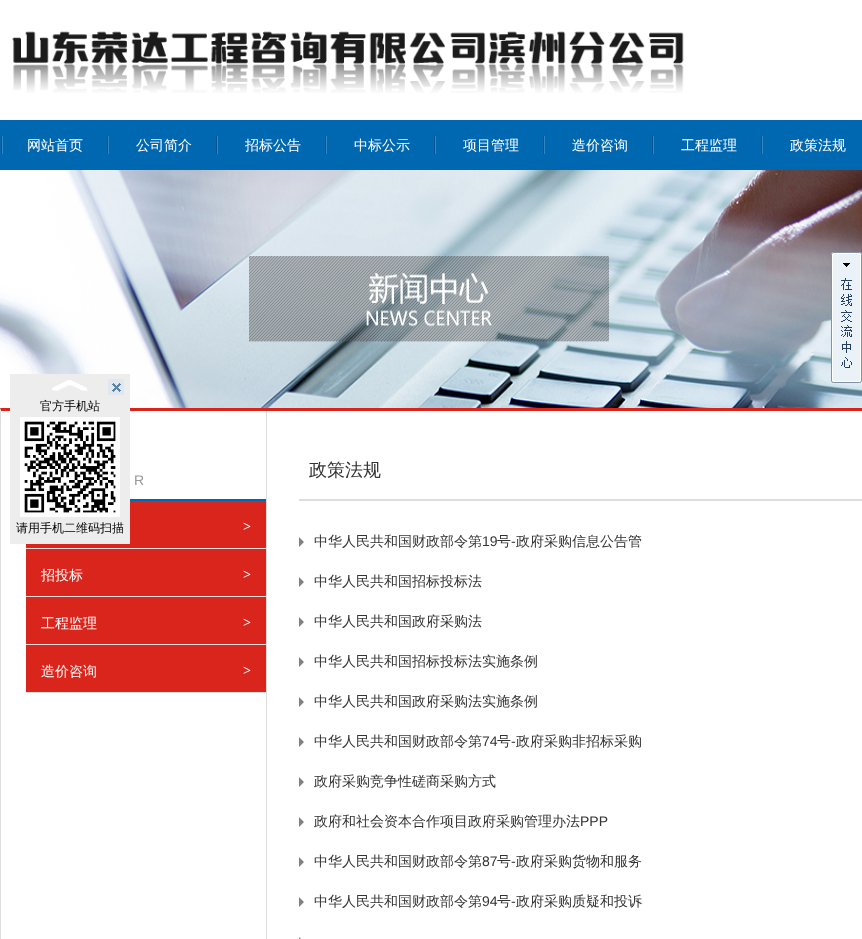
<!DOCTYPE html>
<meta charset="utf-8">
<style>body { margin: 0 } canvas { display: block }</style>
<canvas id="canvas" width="862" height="939"></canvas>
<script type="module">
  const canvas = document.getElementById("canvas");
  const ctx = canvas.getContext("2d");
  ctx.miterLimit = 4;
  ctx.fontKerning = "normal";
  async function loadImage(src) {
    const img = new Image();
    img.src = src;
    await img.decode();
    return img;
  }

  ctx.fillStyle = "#ffffff";
  ctx.fillRect(0, 0, 862, 939);
  ctx.drawImage(await loadImage("img1.png"), 12, 31, 672, 62);
  ctx.fillStyle = "#0068b1";
  ctx.fillRect(0, 120, 862, 50);
  ctx.drawImage(await loadImage("img2.png"), 1, 136, 2, 18);
  ctx.drawImage(await loadImage("img2.png"), 107, 136, 2, 18);
  ctx.font = "500 14px WenQuanYi Zen Hei";
  ctx.fillStyle = "#ffffff";
  ctx.fillText("网站首页", 27, 150);
  ctx.drawImage(await loadImage("img2.png"), 216, 136, 2, 18);
  ctx.fillText("公司简介", 136, 150);
  ctx.drawImage(await loadImage("img2.png"), 325, 136, 2, 18);
  ctx.fillText("招标公告", 245, 150);
  ctx.drawImage(await loadImage("img2.png"), 434, 136, 2, 18);
  ctx.fillText("中标公示", 354, 150);
  ctx.drawImage(await loadImage("img2.png"), 543, 136, 2, 18);
  ctx.fillText("项目管理", 463, 150);
  ctx.drawImage(await loadImage("img2.png"), 652, 136, 2, 18);
  ctx.fillText("造价咨询", 572, 150);
  ctx.drawImage(await loadImage("img2.png"), 761, 136, 2, 18);
  ctx.fillText("工程监理", 681, 150);
  ctx.fillText("政策法规", 790, 150);
  ctx.drawImage(await loadImage("img3.png"), 0, 170, 862, 241);
  ctx.drawImage(await loadImage("img4.png"), 831, 252, 31, 131);
  ctx.fillStyle = "#d7251b";
  ctx.beginPath();
  ctx.moveTo(0, 408);
  ctx.lineTo(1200, 408);
  ctx.lineTo(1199, 411);
  ctx.lineTo(1, 411);
  ctx.closePath();
  ctx.fill();
  ctx.fillStyle = "#da251c";
  ctx.fillRect(26, 501, 240, 47);
  ctx.fillStyle = "#ededed";
  ctx.fillRect(10, 374, 120, 170);
  ctx.drawImage(await loadImage("img5.png"), 52, 380, 36, 11);
  ctx.drawImage(await loadImage("img6.png"), 108, 379, 16, 16);
  ctx.font = "500 12px WenQuanYi Zen Hei";
  ctx.fillStyle = "#000000";
  ctx.fillText("官方手机站", 40, 410);
  ctx.drawImage(await loadImage("img7.png"), 20, 417, 100, 100);
  ctx.fillText("请用手机二维码扫描", 16, 532);
  ctx.fillStyle = "#dddddd";
  ctx.beginPath();
  ctx.moveTo(0, 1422);
  ctx.lineTo(0, 408);
  ctx.lineTo(1, 411);
  ctx.lineTo(1, 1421);
  ctx.closePath();
  ctx.fill();
  ctx.fillStyle = "#0068b1";
  ctx.fillRect(130, 499, 136, 2);
  ctx.font = "14px Liberation Sans";
  ctx.fillStyle = "#999999";
  ctx.fillText("R", 134, 485);
  ctx.fillStyle = "#dddddd";
  ctx.fillRect(26, 548, 240, 1);
  ctx.font = "bold 14px Liberation Serif";
  ctx.fillStyle = "#ffffff";
  ctx.fillText(">", 243, 531);
  ctx.fillStyle = "#da251c";
  ctx.fillRect(26, 549, 240, 47);
  ctx.fillStyle = "#dddddd";
  ctx.fillRect(26, 596, 240, 1);
  ctx.font = "500 14px WenQuanYi Zen Hei";
  ctx.fillStyle = "#ffffff";
  ctx.fillText("招投标", 41, 580);
  ctx.font = "bold 14px Liberation Serif";
  ctx.fillText(">", 243, 579);
  ctx.fillStyle = "#da251c";
  ctx.fillRect(26, 597, 240, 47);
  ctx.fillStyle = "#dddddd";
  ctx.fillRect(26, 644, 240, 1);
  ctx.font = "500 14px WenQuanYi Zen Hei";
  ctx.fillStyle = "#ffffff";
  ctx.fillText("工程监理", 41, 628);
  ctx.font = "bold 14px Liberation Serif";
  ctx.fillText(">", 243, 627);
  ctx.fillStyle = "#da251c";
  ctx.fillRect(26, 645, 240, 47);
  ctx.fillStyle = "#dddddd";
  ctx.fillRect(26, 692, 240, 1);
  ctx.font = "500 14px WenQuanYi Zen Hei";
  ctx.fillStyle = "#ffffff";
  ctx.fillText("造价咨询", 41, 676);
  ctx.font = "bold 14px Liberation Serif";
  ctx.fillText(">", 243, 675);
  ctx.fillStyle = "#dddddd";
  ctx.fillRect(266, 411, 1, 528);
  ctx.fillRect(299, 499, 563, 2);
  ctx.font = "500 18px WenQuanYi Zen Hei";
  ctx.fillStyle = "#333333";
  ctx.fillText("政策法规", 309, 476);
  ctx.fillStyle = "#808080";
  ctx.beginPath();
  ctx.moveTo(299, 547);
  ctx.lineTo(299, 537);
  ctx.lineTo(304, 542);
  ctx.closePath();
  ctx.moveTo(299, 587);
  ctx.lineTo(299, 577);
  ctx.lineTo(304, 582);
  ctx.closePath();
  ctx.fill();
  ctx.font = "500 14px WenQuanYi Zen Hei";
  ctx.fillStyle = "#333333";
  ctx.fillText("中华人民共和国财政部令第", 314, 546);
  ctx.font = "14px Liberation Sans";
  ctx.fillText("19", 482, 546);
  ctx.font = "500 14px WenQuanYi Zen Hei";
  ctx.fillText("号", 497, 546);
  ctx.font = "14px Liberation Sans";
  ctx.fillText("-", 511, 546);
  ctx.font = "500 14px WenQuanYi Zen Hei";
  ctx.fillText("政府采购信息公告管", 516, 546);
  ctx.fillText("中华人民共和国招标投标法", 314, 586);
  ctx.fillStyle = "#808080";
  ctx.beginPath();
  ctx.moveTo(299, 627);
  ctx.lineTo(299, 617);
  ctx.lineTo(304, 622);
  ctx.closePath();
  ctx.moveTo(299, 667);
  ctx.lineTo(299, 657);
  ctx.lineTo(304, 662);
  ctx.closePath();
  ctx.fill();
  ctx.fillStyle = "#333333";
  ctx.fillText("中华人民共和国政府采购法", 314, 626);
  ctx.fillText("中华人民共和国招标投标法实施条例", 314, 666);
  ctx.fillStyle = "#808080";
  ctx.beginPath();
  ctx.moveTo(299, 707);
  ctx.lineTo(299, 697);
  ctx.lineTo(304, 702);
  ctx.closePath();
  ctx.moveTo(299, 747);
  ctx.lineTo(299, 737);
  ctx.lineTo(304, 742);
  ctx.closePath();
  ctx.fill();
  ctx.fillStyle = "#333333";
  ctx.fillText("中华人民共和国政府采购法实施条例", 314, 706);
  ctx.fillText("中华人民共和国财政部令第", 314, 746);
  ctx.font = "14px Liberation Sans";
  ctx.fillText("74", 482, 746);
  ctx.font = "500 14px WenQuanYi Zen Hei";
  ctx.fillText("号", 497, 746);
  ctx.font = "14px Liberation Sans";
  ctx.fillText("-", 511, 746);
  ctx.font = "500 14px WenQuanYi Zen Hei";
  ctx.fillText("政府采购非招标采购", 516, 746);
  ctx.fillStyle = "#808080";
  ctx.beginPath();
  ctx.moveTo(299, 787);
  ctx.lineTo(299, 777);
  ctx.lineTo(304, 782);
  ctx.closePath();
  ctx.moveTo(299, 827);
  ctx.lineTo(299, 817);
  ctx.lineTo(304, 822);
  ctx.closePath();
  ctx.fill();
  ctx.fillStyle = "#333333";
  ctx.fillText("政府采购竞争性磋商采购方式", 314, 786);
  ctx.fillText("政府和社会资本合作项目政府采购管理办法", 314, 826);
  ctx.font = "14px Liberation Sans";
  ctx.fillText("PPP", 580, 826);
  ctx.fillStyle = "#808080";
  ctx.beginPath();
  ctx.moveTo(299, 867);
  ctx.lineTo(299, 857);
  ctx.lineTo(304, 862);
  ctx.closePath();
  ctx.moveTo(299, 907);
  ctx.lineTo(299, 897);
  ctx.lineTo(304, 902);
  ctx.closePath();
  ctx.fill();
  ctx.font = "500 14px WenQuanYi Zen Hei";
  ctx.fillStyle = "#333333";
  ctx.fillText("中华人民共和国财政部令第", 314, 866);
  ctx.font = "14px Liberation Sans";
  ctx.fillText("87", 482, 866);
  ctx.font = "500 14px WenQuanYi Zen Hei";
  ctx.fillText("号", 497, 866);
  ctx.font = "14px Liberation Sans";
  ctx.fillText("-", 511, 866);
  ctx.font = "500 14px WenQuanYi Zen Hei";
  ctx.fillText("政府采购货物和服务", 516, 866);
  ctx.fillText("中华人民共和国财政部令第", 314, 906);
  ctx.font = "14px Liberation Sans";
  ctx.fillText("94", 482, 906);
  ctx.font = "500 14px WenQuanYi Zen Hei";
  ctx.fillText("号", 497, 906);
  ctx.font = "14px Liberation Sans";
  ctx.fillText("-", 511, 906);
  ctx.font = "500 14px WenQuanYi Zen Hei";
  ctx.fillText("政府采购质疑和投诉", 516, 906);
  ctx.fillStyle = "#808080";
  ctx.beginPath();
  ctx.moveTo(299, 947);
  ctx.lineTo(299, 937);
  ctx.lineTo(304, 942);
  ctx.closePath();
  ctx.fill();
</script>
